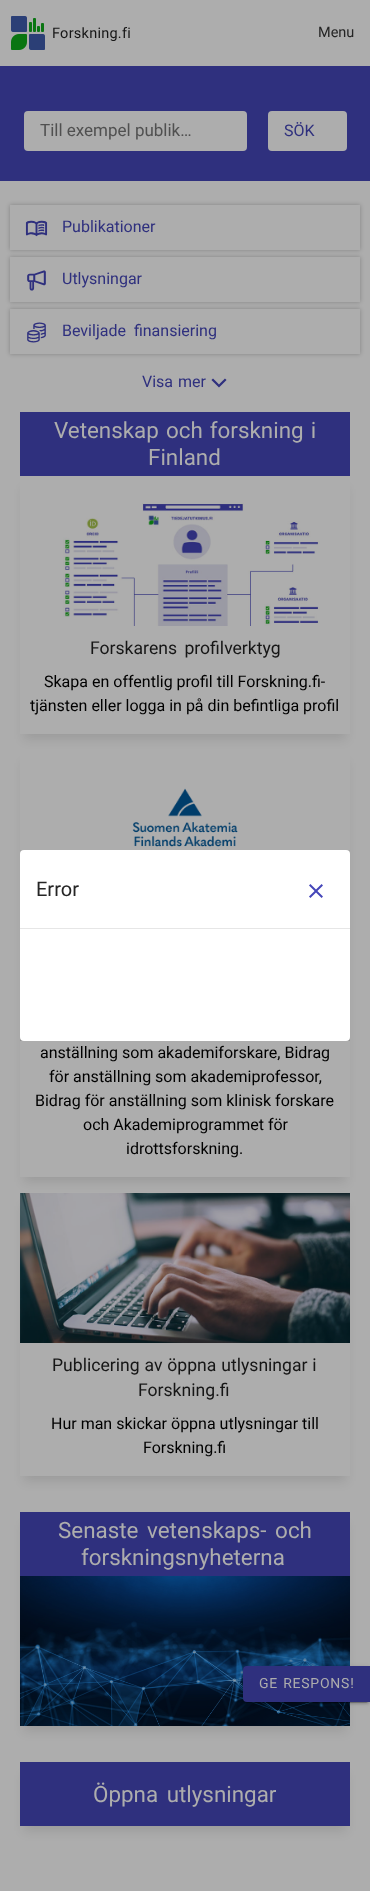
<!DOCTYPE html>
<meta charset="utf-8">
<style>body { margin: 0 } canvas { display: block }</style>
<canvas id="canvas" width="370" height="1891"></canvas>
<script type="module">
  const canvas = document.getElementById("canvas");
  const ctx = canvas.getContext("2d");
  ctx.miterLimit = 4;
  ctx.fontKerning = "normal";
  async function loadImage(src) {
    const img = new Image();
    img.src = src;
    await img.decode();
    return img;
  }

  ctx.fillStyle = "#adadad";
  ctx.fillRect(0, 0, 370, 1891);
  ctx.drawImage(await loadImage("img1.png"), 11, 16, 34, 34);
  ctx.letterSpacing = "0.25px";
  ctx.font = "14.5px Roboto";
  ctx.fillStyle = "#161616";
  ctx.fillText("Forskning.fi", 52, 38);
  ctx.letterSpacing = "0px";
  ctx.fillStyle = "#252525";
  ctx.fillText("Menu", 318, 37);
  ctx.fillStyle = "#2f307e";
  ctx.fillRect(0, 66, 370, 115);
  ctx.fillStyle = "#adadad";
  ctx.beginPath();
  ctx.roundRect(24, 111, 223, 40, 4);
  ctx.fill();
  ctx.font = "17px Roboto";
  ctx.fillStyle = "#505050";
  ctx.fillText("Till exempel publik…", 40, 136);
  ctx.fillStyle = "#adadad";
  ctx.beginPath();
  ctx.roundRect(268, 111, 79, 40, 4);
  ctx.fill();
  ctx.font = "16px Roboto";
  ctx.fillStyle = "#2f307e";
  ctx.fillText("SÖK", 284, 136);
  ctx.save();
  ctx.beginPath();
  ctx.moveTo(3, 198);
  ctx.lineTo(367, 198);
  ctx.lineTo(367, 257);
  ctx.lineTo(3, 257);
  ctx.closePath();
  ctx.moveTo(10, 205);
  ctx.lineTo(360, 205);
  ctx.lineTo(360, 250);
  ctx.lineTo(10, 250);
  ctx.closePath();
  ctx.clip("evenodd");
  ctx.fillStyle = "rgba(0, 0, 0, 0.25)";
  ctx.filter = "blur(2px)";
  ctx.beginPath();
  ctx.rect(10, 205, 350, 45);
  ctx.fill();
  ctx.filter = "none";
  ctx.restore();
  ctx.drawImage(await loadImage("img2.png"), 25, 220, 23, 17);
  ctx.fillText("Publikationer", 62, 232);
  ctx.save();
  ctx.beginPath();
  ctx.moveTo(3, 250);
  ctx.lineTo(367, 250);
  ctx.lineTo(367, 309);
  ctx.lineTo(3, 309);
  ctx.closePath();
  ctx.moveTo(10, 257);
  ctx.lineTo(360, 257);
  ctx.lineTo(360, 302);
  ctx.lineTo(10, 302);
  ctx.closePath();
  ctx.clip("evenodd");
  ctx.fillStyle = "rgba(0, 0, 0, 0.25)";
  ctx.filter = "blur(2px)";
  ctx.beginPath();
  ctx.rect(10, 257, 350, 45);
  ctx.fill();
  ctx.filter = "none";
  ctx.restore();
  ctx.drawImage(await loadImage("img3.png"), 27, 270, 19, 21);
  ctx.fillText("Utlysningar", 62, 284);
  ctx.save();
  ctx.beginPath();
  ctx.moveTo(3, 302);
  ctx.lineTo(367, 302);
  ctx.lineTo(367, 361);
  ctx.lineTo(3, 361);
  ctx.closePath();
  ctx.moveTo(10, 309);
  ctx.lineTo(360, 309);
  ctx.lineTo(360, 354);
  ctx.lineTo(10, 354);
  ctx.closePath();
  ctx.clip("evenodd");
  ctx.fillStyle = "rgba(0, 0, 0, 0.25)";
  ctx.filter = "blur(2px)";
  ctx.beginPath();
  ctx.rect(10, 309, 350, 45);
  ctx.fill();
  ctx.filter = "none";
  ctx.restore();
  ctx.drawImage(await loadImage("img4.png"), 27, 322, 19, 21);
  ctx.wordSpacing = "4px";
  ctx.fillText("Beviljade finansiering", 62, 336);
  ctx.wordSpacing = "1px";
  ctx.fillText("Visa mer", 142, 387);
  ctx.drawImage(await loadImage("img5.png"), 211, 378, 16, 10);
  ctx.fillRect(20, 412, 330, 64);
  ctx.wordSpacing = "1.5px";
  ctx.font = "22.4px Roboto";
  ctx.fillStyle = "#adadad";
  ctx.fillText("Vetenskap och forskning i", 54, 438);
  ctx.wordSpacing = "0px";
  ctx.fillText("Finland", 148, 465);
  ctx.save();
  ctx.beginPath();
  ctx.moveTo(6, 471);
  ctx.lineTo(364, 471);
  ctx.lineTo(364, 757);
  ctx.lineTo(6, 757);
  ctx.closePath();
  ctx.moveTo(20, 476);
  ctx.lineTo(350, 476);
  ctx.lineTo(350, 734);
  ctx.lineTo(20, 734);
  ctx.closePath();
  ctx.clip("evenodd");
  ctx.fillStyle = "rgba(0, 0, 0, 0.1)";
  ctx.filter = "blur(5.5px)";
  ctx.beginPath();
  ctx.rect(24, 489, 322, 250);
  ctx.fill();
  ctx.filter = "none";
  ctx.restore();
  ctx.drawImage(await loadImage("img6.png"), 63, 503, 257, 123);
  ctx.wordSpacing = "3px";
  ctx.font = "17.6px Roboto";
  ctx.fillStyle = "#161616";
  ctx.fillText("Forskarens profilverktyg", 90, 654);
  ctx.wordSpacing = "0px";
  ctx.font = "16px Roboto";
  ctx.fillStyle = "#000000";
  ctx.fillText("Skapa en offentlig profil till Forskning.fi-", 44, 687);
  ctx.fillText("tjänsten eller logga in på din befintliga profil", 30, 711);
  ctx.save();
  ctx.beginPath();
  ctx.moveTo(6, 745);
  ctx.lineTo(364, 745);
  ctx.lineTo(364, 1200);
  ctx.lineTo(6, 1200);
  ctx.closePath();
  ctx.moveTo(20, 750);
  ctx.lineTo(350, 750);
  ctx.lineTo(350, 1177);
  ctx.lineTo(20, 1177);
  ctx.closePath();
  ctx.clip("evenodd");
  ctx.fillStyle = "rgba(0, 0, 0, 0.1)";
  ctx.filter = "blur(5.5px)";
  ctx.beginPath();
  ctx.rect(24, 763, 322, 419);
  ctx.fill();
  ctx.filter = "none";
  ctx.restore();
  ctx.drawImage(await loadImage("img7.png"), 132, 788, 106, 62);
  ctx.fillText("anställning som akademiforskare, Bidrag", 40, 1058);
  ctx.fillText("för anställning som akademiprofessor,", 49, 1082);
  ctx.fillText("Bidrag för anställning som klinisk forskare", 35, 1106);
  ctx.fillText("och Akademiprogrammet för", 83, 1130);
  ctx.fillText("idrottsforskning.", 126, 1154);
  ctx.save();
  ctx.beginPath();
  ctx.moveTo(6, 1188);
  ctx.lineTo(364, 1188);
  ctx.lineTo(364, 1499);
  ctx.lineTo(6, 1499);
  ctx.closePath();
  ctx.moveTo(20, 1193);
  ctx.lineTo(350, 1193);
  ctx.lineTo(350, 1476);
  ctx.lineTo(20, 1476);
  ctx.closePath();
  ctx.clip("evenodd");
  ctx.fillStyle = "rgba(0, 0, 0, 0.1)";
  ctx.filter = "blur(5.5px)";
  ctx.beginPath();
  ctx.rect(24, 1206, 322, 275);
  ctx.fill();
  ctx.filter = "none";
  ctx.restore();
  ctx.drawImage(await loadImage("img8.png"), 20, 1193, 330, 150);
  ctx.wordSpacing = "0.5px";
  ctx.font = "17.6px Roboto";
  ctx.fillStyle = "#161616";
  ctx.fillText("Publicering av öppna utlysningar i", 52, 1371);
  ctx.wordSpacing = "0px";
  ctx.fillText("Forskning.fi", 138, 1396);
  ctx.font = "16px Roboto";
  ctx.fillStyle = "#000000";
  ctx.fillText("Hur man skickar öppna utlysningar till", 51, 1429);
  ctx.fillText("Forskning.fi", 143, 1453);
  ctx.fillStyle = "rgba(0, 0, 0, 0.1)";
  ctx.filter = "blur(5.5px)";
  ctx.beginPath();
  ctx.rect(24, 1525, 322, 206);
  ctx.fill();
  ctx.filter = "none";
  ctx.fillStyle = "#2f307e";
  ctx.fillRect(20, 1512, 330, 64);
  ctx.wordSpacing = "3px";
  ctx.font = "22.4px Roboto";
  ctx.fillStyle = "#adadad";
  ctx.fillText("Senaste vetenskaps- och", 58, 1538);
  ctx.wordSpacing = "0px";
  ctx.fillText("forskningsnyheterna", 81, 1565);
  ctx.drawImage(await loadImage("img9.png"), 20, 1576, 330, 150);
  ctx.fillStyle = "rgba(0, 0, 0, 0.1)";
  ctx.filter = "blur(5.5px)";
  ctx.beginPath();
  ctx.rect(24, 1775, 322, 56);
  ctx.fill();
  ctx.filter = "none";
  ctx.fillStyle = "#2f307e";
  ctx.fillRect(20, 1762, 330, 64);
  ctx.wordSpacing = "3px";
  ctx.fillStyle = "#adadad";
  ctx.fillText("Öppna utlysningar", 93, 1802);
  ctx.fillStyle = "rgba(0, 0, 0, 0.12)";
  ctx.filter = "blur(2.5px)";
  ctx.beginPath();
  ctx.roundRect(243, 1667, 127, 36, 4);
  ctx.fill();
  ctx.filter = "none";
  ctx.fillStyle = "rgba(0, 0, 0, 0.14)";
  ctx.filter = "blur(1px)";
  ctx.beginPath();
  ctx.roundRect(243, 1668, 127, 36, 4);
  ctx.fill();
  ctx.filter = "none";
  ctx.fillStyle = "rgba(0, 0, 0, 0.2)";
  ctx.filter = "blur(0.5px)";
  ctx.beginPath();
  ctx.roundRect(245, 1671, 123, 32, 2);
  ctx.fill();
  ctx.filter = "none";
  ctx.fillStyle = "#2f307e";
  ctx.beginPath();
  ctx.roundRect(243, 1666, 127, 36, [4, 0, 0, 4]);
  ctx.fill();
  ctx.letterSpacing = "0.75px";
  ctx.wordSpacing = "1px";
  ctx.font = "14px Roboto";
  ctx.fillStyle = "#adadad";
  ctx.fillText("GE RESPONS!", 259, 1688);
  ctx.save();
  ctx.beginPath();
  ctx.rect(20, 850, 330, 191);
  ctx.clip();
  ctx.fillStyle = "rgba(0, 0, 0, 0.12)";
  ctx.filter = "blur(23px)";
  ctx.beginPath();
  ctx.roundRect(12, 851, 346, 207, 12);
  ctx.fill();
  ctx.filter = "none";
  ctx.fillStyle = "rgba(0, 0, 0, 0.14)";
  ctx.filter = "blur(19px)";
  ctx.beginPath();
  ctx.roundRect(17, 871, 336, 197, 7);
  ctx.fill();
  ctx.filter = "none";
  ctx.fillStyle = "rgba(0, 0, 0, 0.2)";
  ctx.filter = "blur(7.5px)";
  ctx.beginPath();
  ctx.rect(27, 868, 316, 177);
  ctx.fill();
  ctx.filter = "none";
  ctx.restore();
  ctx.fillStyle = "#ffffff";
  ctx.beginPath();
  ctx.roundRect(20, 850, 330, 191, 4);
  ctx.fill();
  ctx.fillStyle = "#e6e6e6";
  ctx.fillRect(20, 928, 330, 1);
  ctx.letterSpacing = "0px";
  ctx.wordSpacing = "0px";
  ctx.font = "20px Roboto";
  ctx.fillStyle = "#252525";
  ctx.fillText("Error", 36, 896);
  ctx.drawImage(await loadImage("img10.png"), 309, 884, 14, 14);
</script>
